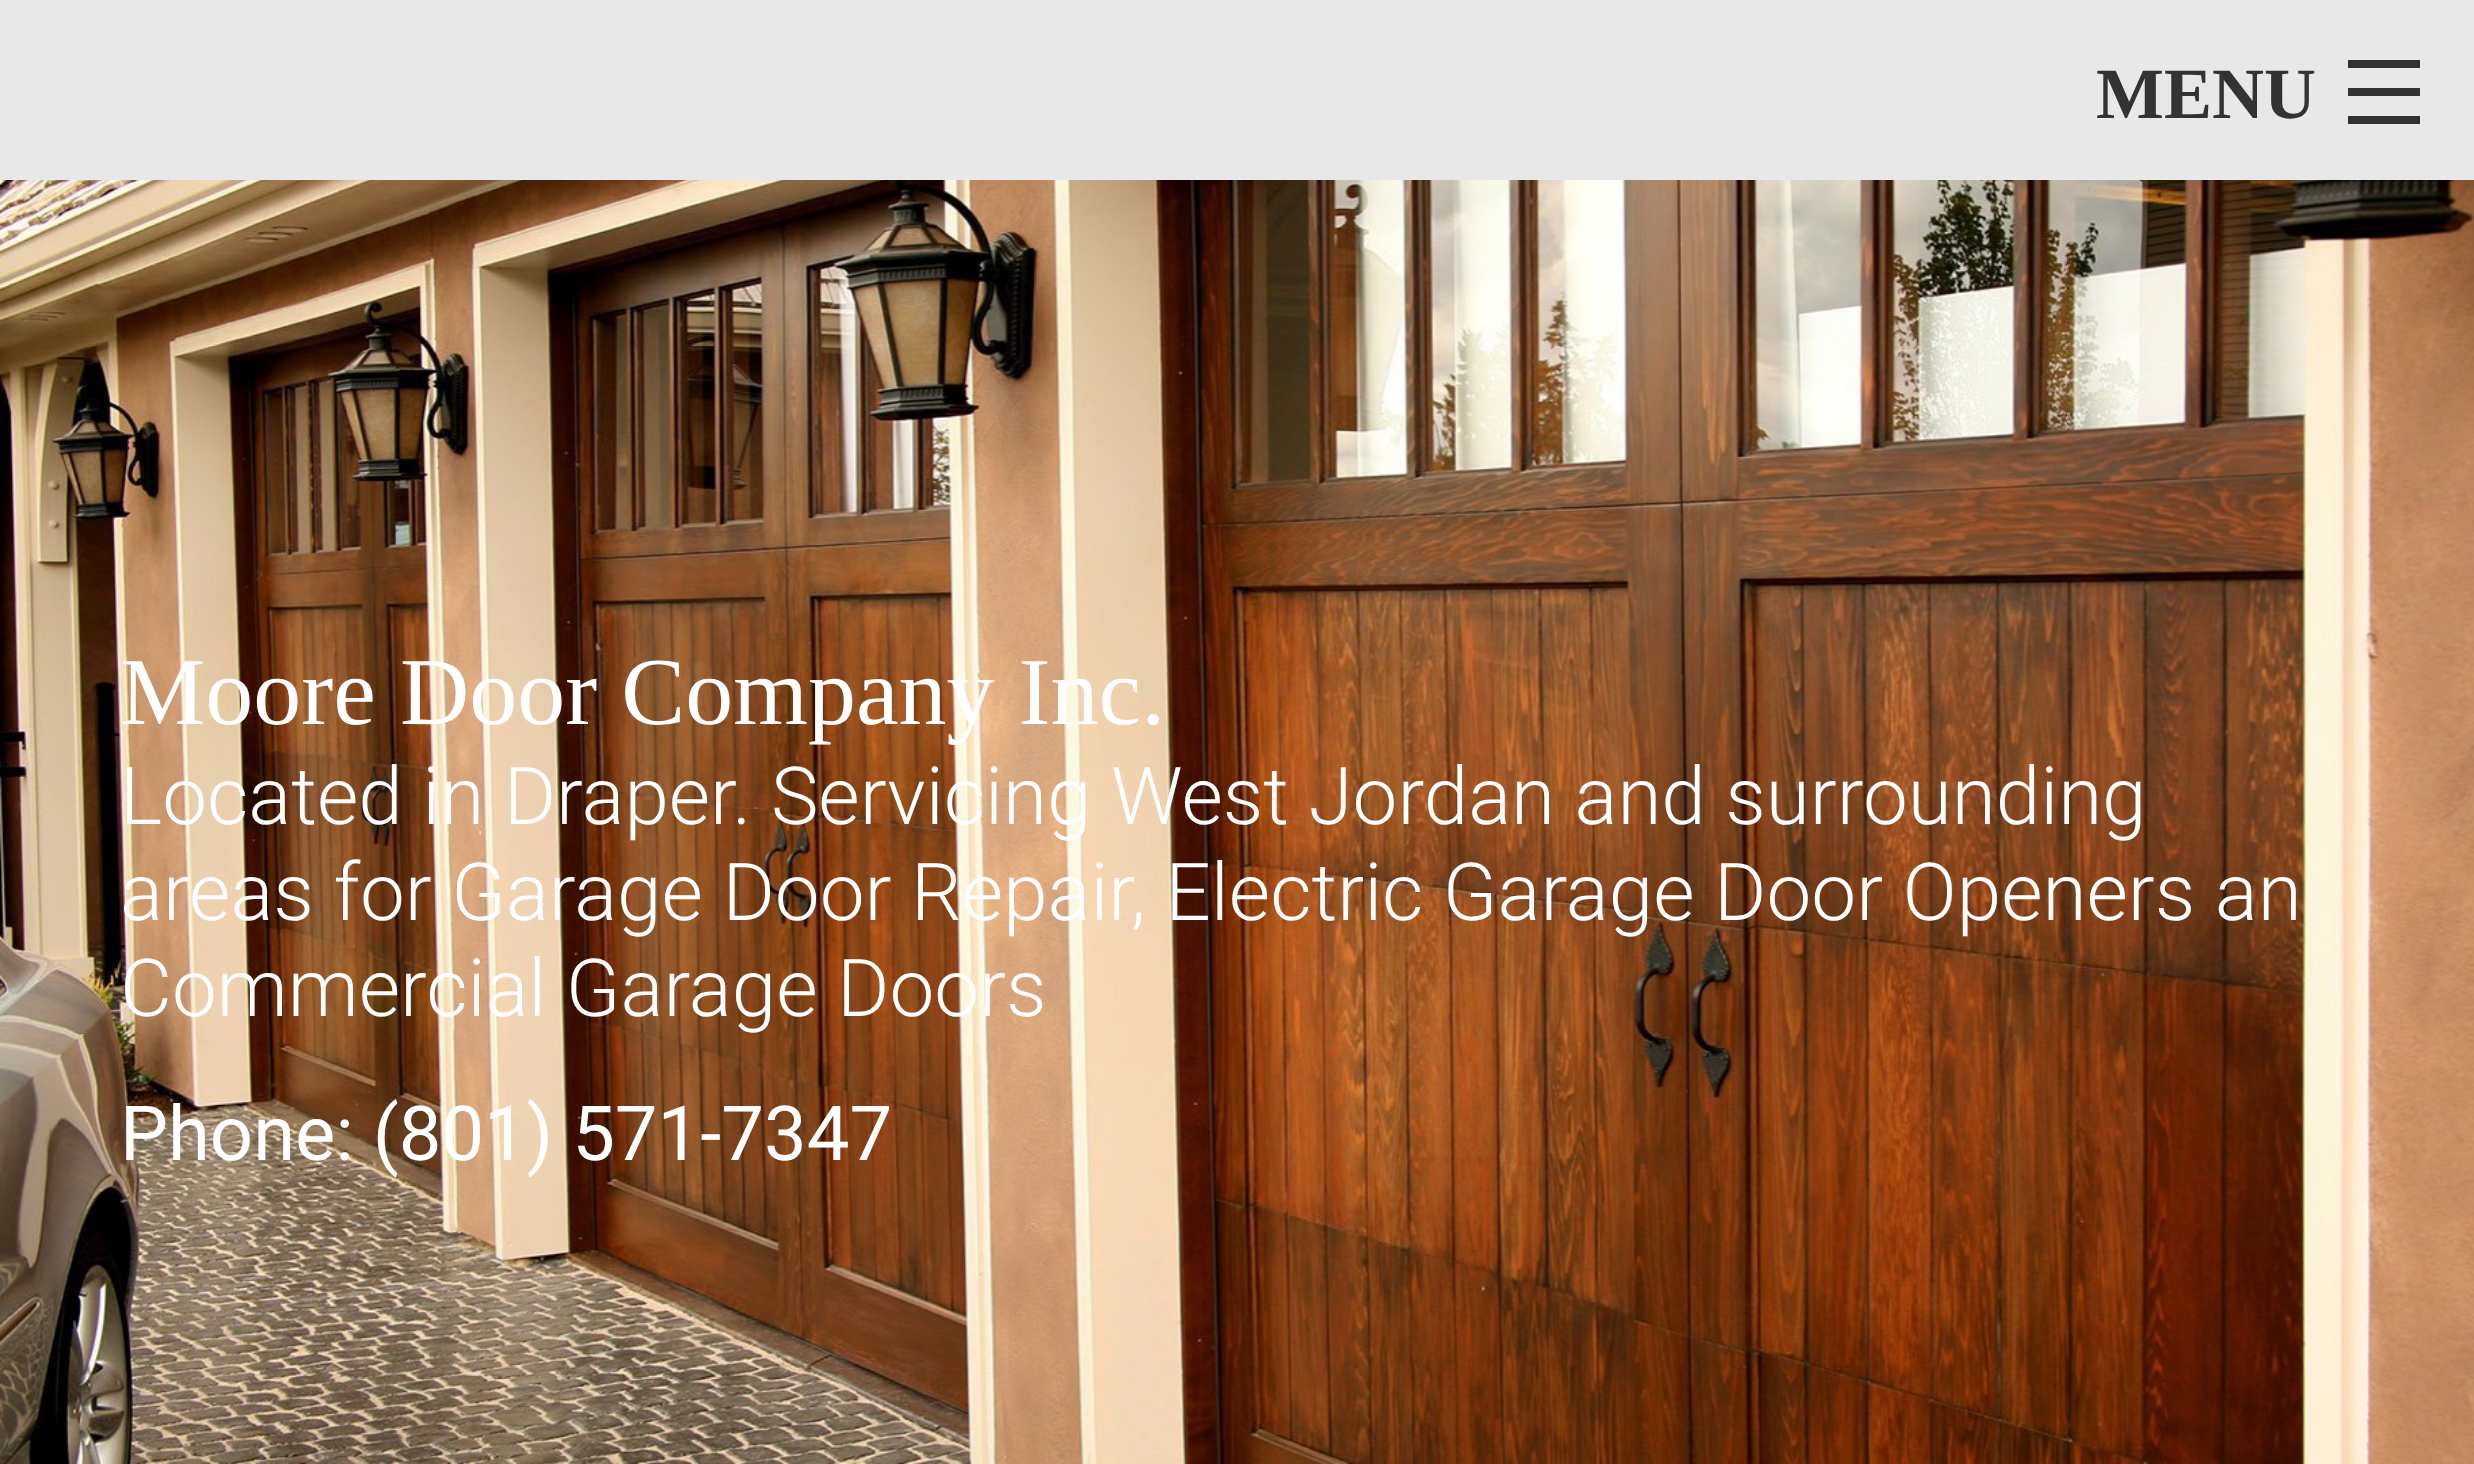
<!DOCTYPE html>
<meta charset="utf-8">
<style>body { margin: 0 } canvas { display: block }</style>
<canvas id="canvas" width="2474" height="1464"></canvas>
<script type="module">
  const canvas = document.getElementById("canvas");
  const ctx = canvas.getContext("2d");
  ctx.miterLimit = 4;
  ctx.fontKerning = "normal";
  async function loadImage(src) {
    const img = new Image();
    img.src = src;
    await img.decode();
    return img;
  }

  ctx.fillStyle = "#ffffff";
  ctx.fillRect(0, 0, 2474, 1464);
  ctx.fillStyle = "#e8e8e8";
  ctx.fillRect(0, 0, 2474, 180);
  ctx.font = "bold 72px Liberation Serif";
  ctx.fillStyle = "#333333";
  ctx.fillText("MENU", 2096, 118);
  ctx.fillRect(2348, 116, 72, 8);
  ctx.fillRect(2348, 88, 72, 8);
  ctx.fillRect(2348, 60, 72, 8);
  ctx.drawImage(await loadImage("img1.png"), 0, 180, 2474, 1284);
  ctx.font = "96px Liberation Serif";
  ctx.fillStyle = "#ffffff";
  ctx.fillText("Moore Door Company Inc.", 120, 724);
  ctx.font = "300 80px Roboto";
  ctx.fillText("Located in Draper. Servicing West Jordan and surrounding", 120, 824);
  ctx.fillText("areas for Garage Door Repair, Electric Garage Door Openers an", 120, 920);
  ctx.fillText("Commercial Garage Doors", 120, 1016);
  ctx.font = "76px Roboto";
  ctx.fillText("Phone: (801) 571-7347", 120, 1160);
</script>
